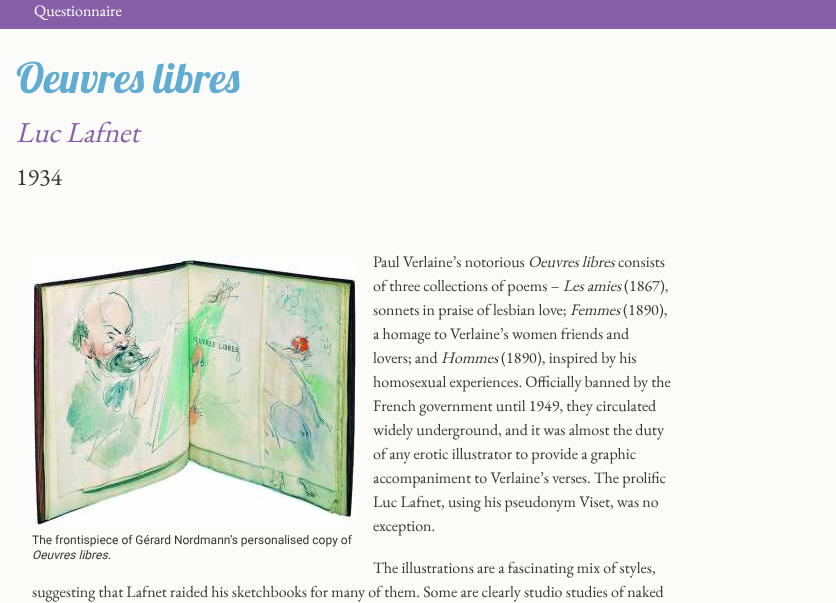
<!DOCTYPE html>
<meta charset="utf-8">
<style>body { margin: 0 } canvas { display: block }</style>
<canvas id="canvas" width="836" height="603"></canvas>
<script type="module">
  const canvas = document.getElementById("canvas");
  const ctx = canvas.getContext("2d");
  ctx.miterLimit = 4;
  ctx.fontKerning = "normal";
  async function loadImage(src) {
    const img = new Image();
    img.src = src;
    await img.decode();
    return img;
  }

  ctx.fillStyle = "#fbfbfa";
  ctx.fillRect(0, 0, 836, 603);
  ctx.fillStyle = "#865fa8";
  ctx.fillRect(0, 0, 836, 29);
  ctx.font = "16px EB Garamond";
  ctx.fillStyle = "#ffffff";
  ctx.fillText("Questionnaire", 34, 16);
  ctx.font = "42px Lobster";
  ctx.fillStyle = "#61acd2";
  ctx.fillText("Oeuvres libres", 16, 93);
  ctx.font = "italic 29px EB Garamond";
  ctx.fillStyle = "#865fa8";
  ctx.fillText("Luc Lafnet", 16, 142);
  ctx.font = "24px EB Garamond";
  ctx.fillStyle = "#363636";
  ctx.fillText("1934", 16, 185);
  ctx.font = "16px EB Garamond";
  ctx.fillText("Paul Verlaine’s notorious", 373, 267);
  ctx.font = "italic 16px EB Garamond";
  ctx.fillText("Oeuvres libres", 528, 267);
  ctx.font = "16px EB Garamond";
  ctx.fillText("consists", 618, 267);
  ctx.fillText("of three collections of poems –", 373, 291);
  ctx.font = "italic 16px EB Garamond";
  ctx.fillText("Les amies", 563, 291);
  ctx.font = "16px EB Garamond";
  ctx.fillText("(1867),", 624, 291);
  ctx.fillText("sonnets in praise of lesbian love;", 373, 315);
  ctx.font = "italic 16px EB Garamond";
  ctx.fillText("Femmes", 570, 315);
  ctx.font = "16px EB Garamond";
  ctx.fillText("(1890),", 623, 315);
  ctx.fillText("a homage to Verlaine’s women friends and", 373, 339);
  ctx.fillText("lovers; and", 373, 363);
  ctx.font = "italic 16px EB Garamond";
  ctx.fillText("Hommes", 441, 363);
  ctx.font = "16px EB Garamond";
  ctx.fillText("(1890), inspired by his", 501, 363);
  ctx.fillText("homosexual experiences. Officially banned by the", 373, 387);
  ctx.fillText("French government until 1949, they circulated", 373, 411);
  ctx.fillText("widely underground, and it was almost the duty", 373, 435);
  ctx.fillText("of any erotic illustrator to provide a graphic", 373, 459);
  ctx.fillText("accompaniment to Verlaine’s verses. The prolific", 373, 483);
  ctx.fillText("Luc Lafnet, using his pseudonym Viset, was no", 373, 507);
  ctx.fillText("exception.", 373, 531);
  ctx.drawImage(await loadImage("img1.png"), 32, 258, 325, 268);
  ctx.font = "12px Roboto";
  ctx.fillText("The frontispiece of Gérard Nordmann’s personalised copy of", 32, 544);
  ctx.font = "italic 12px Roboto";
  ctx.fillText("Oeuvres libres", 32, 559);
  ctx.font = "12px Roboto";
  ctx.fillText(".", 108, 559);
  ctx.font = "16px EB Garamond";
  ctx.fillText("The illustrations are a fascinating mix of styles,", 373, 573);
  ctx.fillText("suggesting that Lafnet raided his sketchbooks for many of them. Some are clearly studio studies of naked", 32, 597);
</script>
